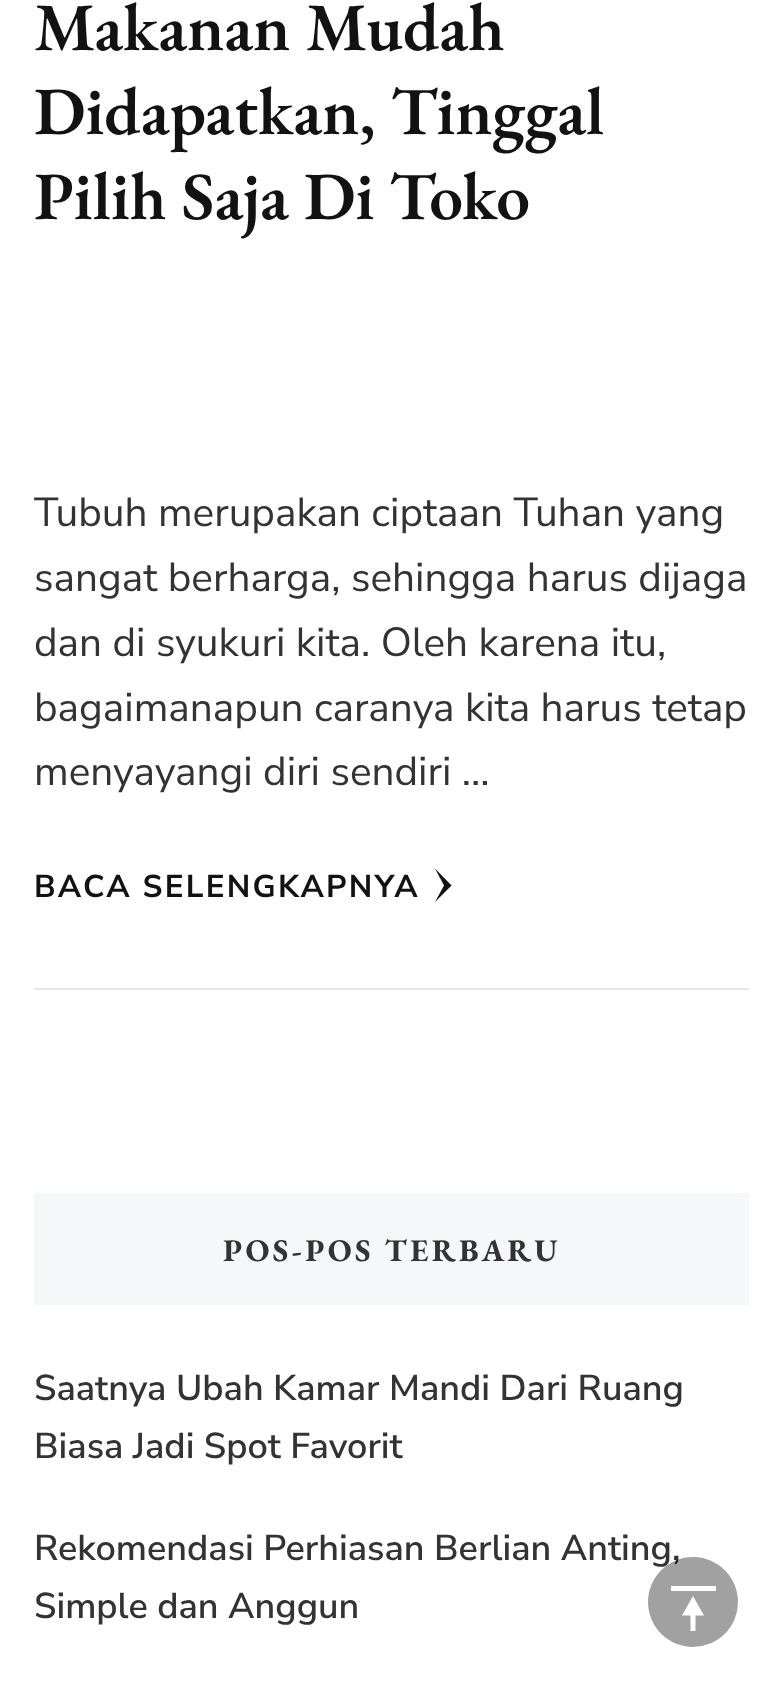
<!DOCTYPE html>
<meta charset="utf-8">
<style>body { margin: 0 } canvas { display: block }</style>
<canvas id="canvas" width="783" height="1692"></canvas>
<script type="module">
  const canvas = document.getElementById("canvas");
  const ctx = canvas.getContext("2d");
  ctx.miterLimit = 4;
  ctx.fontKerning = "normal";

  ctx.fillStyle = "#ffffff";
  ctx.fillRect(0, 0, 783, 1692);
  ctx.fillStyle = "#e6e6e6";
  ctx.fillRect(34, 988, 715, 2);
  ctx.font = "600 67.6px EB Garamond";
  ctx.fillStyle = "#121212";
  ctx.fillText("Makanan Mudah", 34, 50);
  ctx.fillText("Didapatkan, Tinggal", 34, 134);
  ctx.fillText("Pilih Saja Di Toko", 34, 219);
  ctx.font = "40.5px Nunito Sans";
  ctx.fillStyle = "#333333";
  ctx.fillText("Tubuh merupakan ciptaan Tuhan yang", 34, 526);
  ctx.fillText("sangat berharga, sehingga harus dijaga", 34, 591);
  ctx.fillText("dan di syukuri kita. Oleh karena itu,", 34, 656);
  ctx.fillText("bagaimanapun caranya kita harus tetap", 34, 721);
  ctx.fillText("menyayangi diri sendiri …", 34, 785);
  ctx.letterSpacing = "2.25px";
  ctx.font = "bold 31.5px Nunito Sans";
  ctx.fillStyle = "#121212";
  ctx.fillText("BACA SELENGKAPNYA", 34, 897);
  ctx.beginPath();
  ctx.moveTo(451.5, 885.5);
  ctx.lineTo(435, 902);
  ctx.lineTo(444, 885.5);
  ctx.lineTo(435, 868.5);
  ctx.closePath();
  ctx.fill();
  ctx.fillStyle = "#f4f8f8";
  ctx.fillRect(34, 1193, 715, 112);
  ctx.letterSpacing = "3.4px";
  ctx.font = "bold 31.5px EB Garamond";
  ctx.fillStyle = "#333333";
  ctx.fillText("POS-POS TERBARU", 223, 1261);
  ctx.letterSpacing = "0px";
  ctx.font = "600 36px Nunito Sans";
  ctx.fillText("Saatnya Ubah Kamar Mandi Dari Ruang", 34, 1400);
  ctx.fillText("Biasa Jadi Spot Favorit", 34, 1458);
  ctx.fillText("Rekomendasi Perhiasan Berlian Anting,", 34, 1560);
  ctx.fillText("Simple dan Anggun", 34, 1618);
  ctx.fillStyle = "rgba(0, 0, 0, 0.37)";
  ctx.beginPath();
  ctx.arc(693, 1602, 45, 0, Math.PI * 2);
  ctx.fill();
  ctx.fillStyle = "#ffffff";
  ctx.fillRect(671, 1586, 45, 5);
  ctx.beginPath();
  ctx.moveTo(704, 1615.5);
  ctx.lineTo(693, 1596);
  ctx.lineTo(682, 1615.5);
  ctx.lineTo(690.5, 1615.5);
  ctx.lineTo(690.5, 1631);
  ctx.lineTo(695.5, 1631);
  ctx.lineTo(695.5, 1615.5);
  ctx.closePath();
  ctx.fill();
</script>
